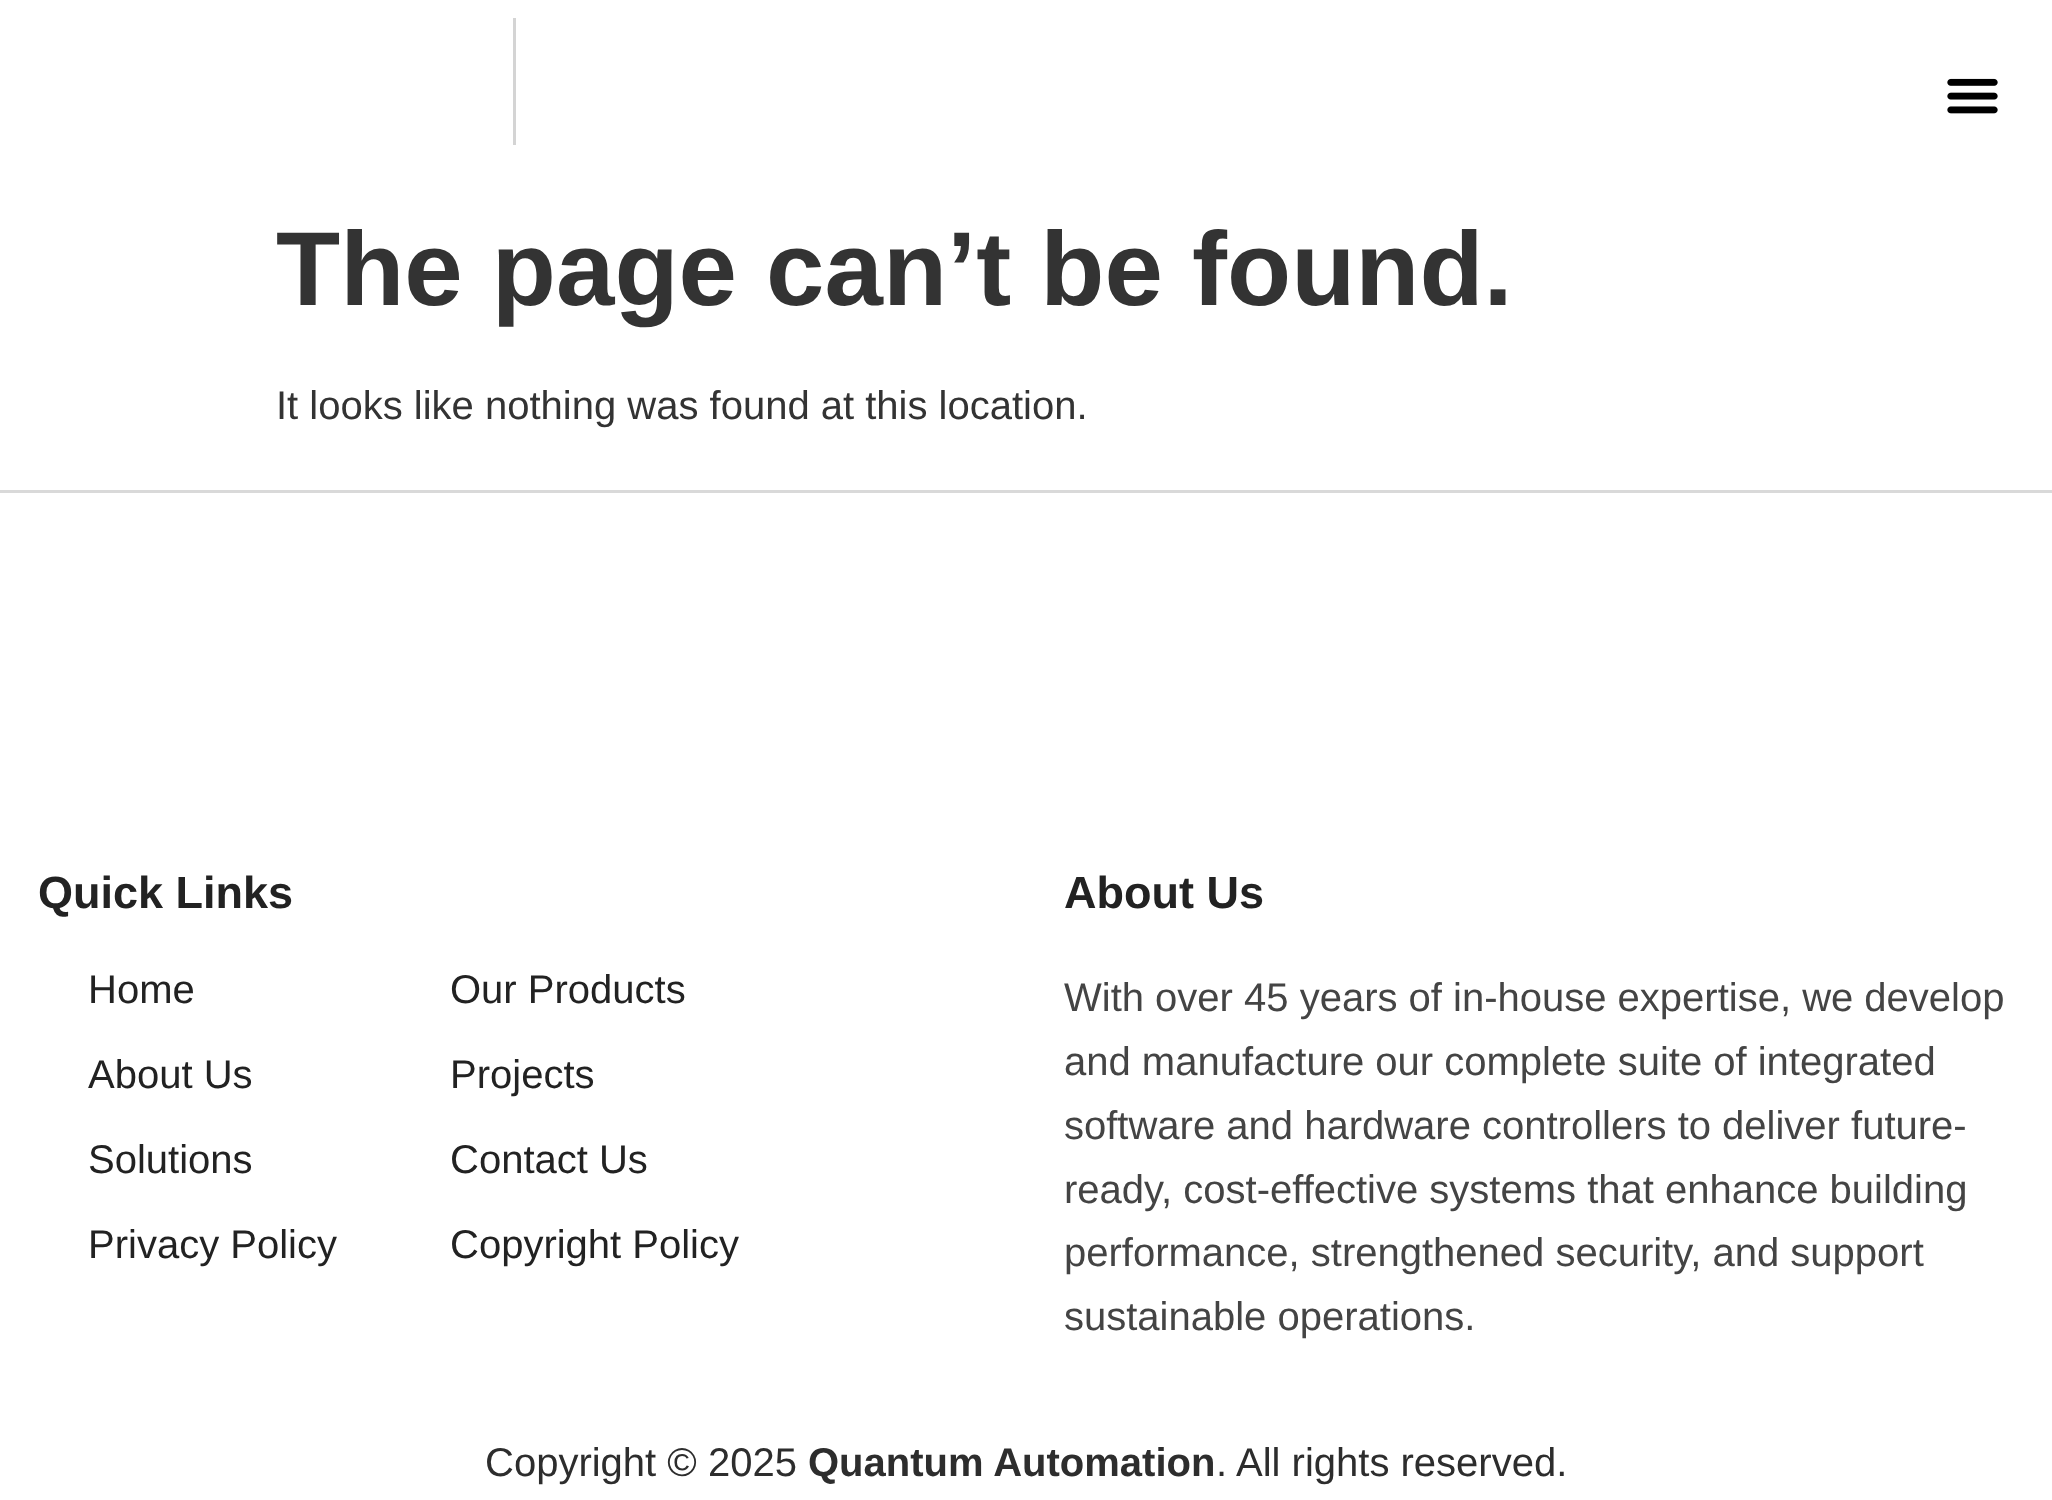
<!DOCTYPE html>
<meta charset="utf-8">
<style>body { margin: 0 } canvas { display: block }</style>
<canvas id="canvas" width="2052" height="1500"></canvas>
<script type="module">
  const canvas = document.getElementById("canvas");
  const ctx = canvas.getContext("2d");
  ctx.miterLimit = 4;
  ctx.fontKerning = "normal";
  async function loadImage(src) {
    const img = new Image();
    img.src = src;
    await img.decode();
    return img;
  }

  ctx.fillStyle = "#ffffff";
  ctx.fillRect(0, 0, 2052, 1500);
  ctx.fillStyle = "#d4d4d4";
  ctx.fillRect(513, 18, 3, 127);
  ctx.drawImage(await loadImage("img1.png"), 1947, 78, 51, 36);
  ctx.font = "bold 105px Liberation Sans";
  ctx.fillStyle = "#333333";
  ctx.fillText("The page can’t be found.", 276, 305);
  ctx.font = "40px Liberation Sans";
  ctx.fillText("It looks like nothing was found at this location.", 276, 419);
  ctx.fillStyle = "#d9d9d9";
  ctx.fillRect(0, 490, 2052, 3);
  ctx.font = "bold 45px Liberation Sans";
  ctx.fillStyle = "#222222";
  ctx.fillText("Quick Links", 38, 908);
  ctx.font = "40px Liberation Sans";
  ctx.fillText("Home", 88, 1003);
  ctx.fillText("About Us", 88, 1088);
  ctx.fillText("Solutions", 88, 1173);
  ctx.fillText("Privacy Policy", 88, 1258);
  ctx.fillText("Our Products", 450, 1003);
  ctx.fillText("Projects", 450, 1088);
  ctx.fillText("Contact Us", 450, 1173);
  ctx.fillText("Copyright Policy", 450, 1258);
  ctx.font = "bold 45px Liberation Sans";
  ctx.fillText("About Us", 1064, 908);
  ctx.font = "40px Liberation Sans";
  ctx.fillStyle = "#444444";
  ctx.fillText("With over 45 years of in-house expertise, we develop", 1064, 1011);
  ctx.fillText("and manufacture our complete suite of integrated", 1064, 1075);
  ctx.fillText("software and hardware controllers to deliver future-", 1064, 1139);
  ctx.fillText("ready, cost-effective systems that enhance building", 1064, 1203);
  ctx.fillText("performance, strengthened security, and support", 1064, 1266);
  ctx.fillText("sustainable operations.", 1064, 1330);
  ctx.fillStyle = "#2d2d2d";
  ctx.fillText("Copyright © 2025", 485, 1476);
  ctx.font = "bold 40px Liberation Sans";
  ctx.fillText("Quantum Automation", 808, 1476);
  ctx.font = "40px Liberation Sans";
  ctx.fillText(". All rights reserved.", 1216, 1476);
</script>
